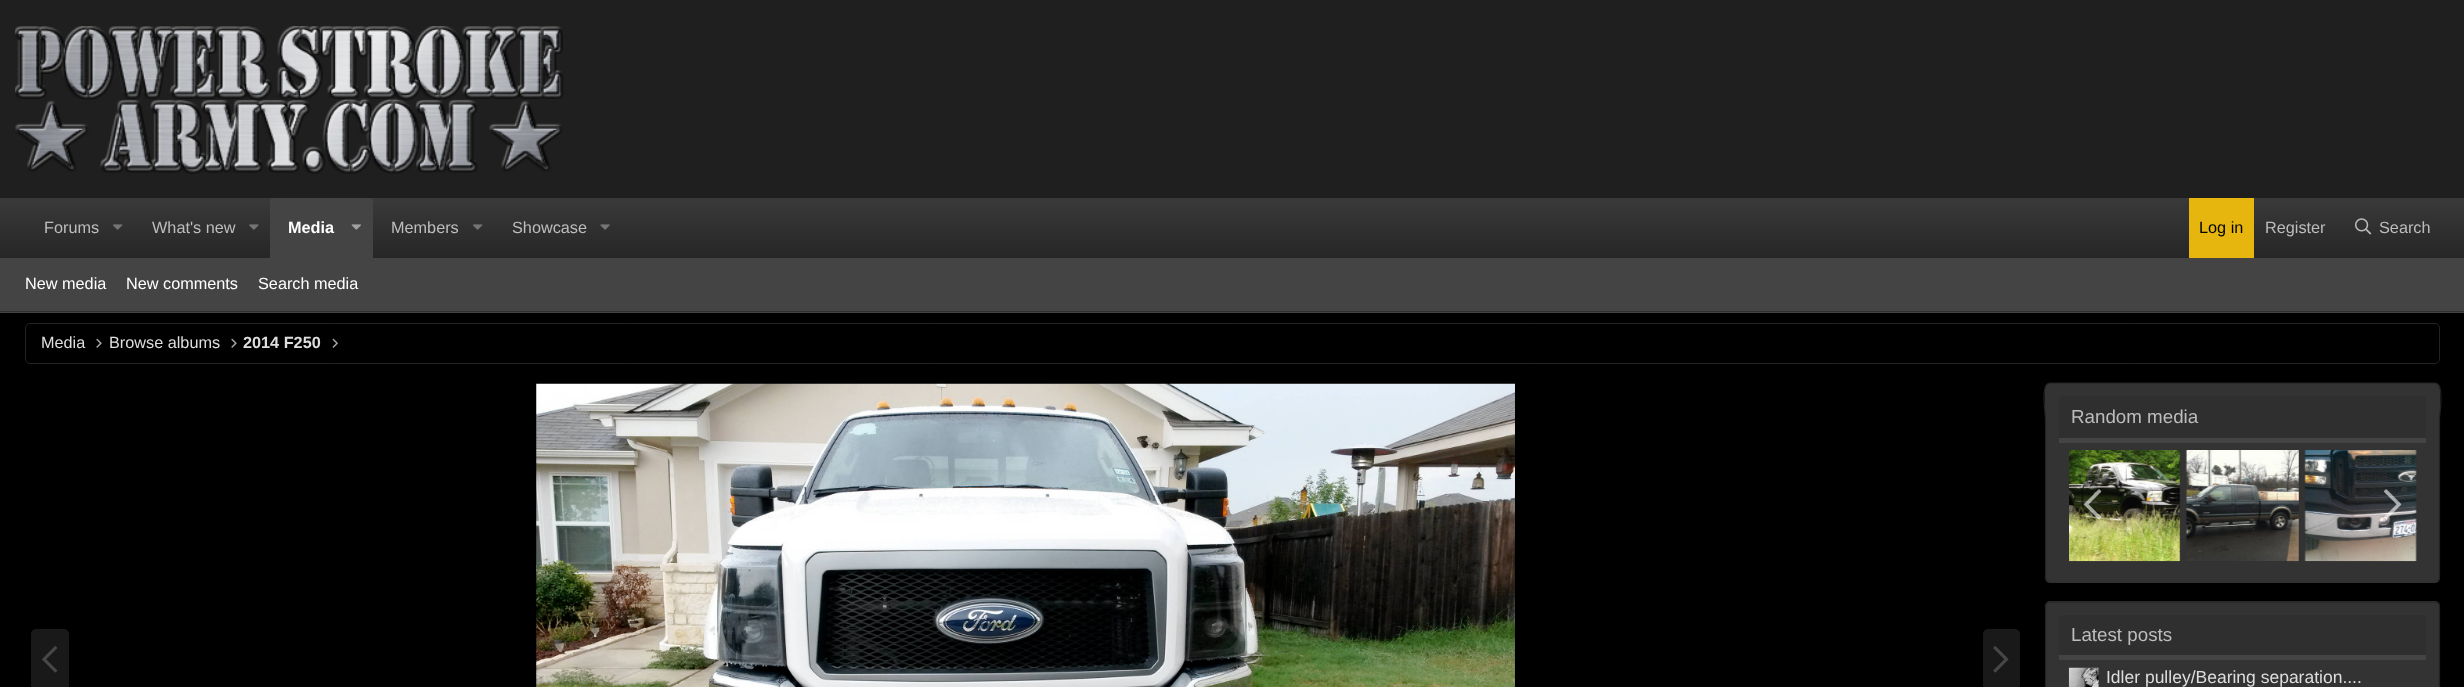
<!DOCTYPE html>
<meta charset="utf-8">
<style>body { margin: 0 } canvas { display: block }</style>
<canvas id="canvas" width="2464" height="687"></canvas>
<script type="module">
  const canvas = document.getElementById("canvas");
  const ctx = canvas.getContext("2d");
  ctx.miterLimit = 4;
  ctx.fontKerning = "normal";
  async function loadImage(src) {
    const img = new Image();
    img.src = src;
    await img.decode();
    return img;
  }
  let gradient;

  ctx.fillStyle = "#000000";
  ctx.fillRect(0, 0, 2464, 687);
  ctx.fillStyle = "#1f1f1f";
  ctx.fillRect(0, 0, 2464, 198);
  ctx.drawImage(await loadImage("img1.png"), 15, 26, 549, 148);
  gradient = ctx.createLinearGradient(1233, 197, 1233, 258);
  gradient.addColorStop(0, "#3a3a3a");
  gradient.addColorStop(1, "#262626");
  ctx.fillStyle = gradient;
  ctx.fillRect(0, 198, 2464, 60);
  ctx.font = "16.25px Liberation Sans";
  ctx.fillStyle = "#bdbdbd";
  ctx.fillText("Forums", 44, 233);
  ctx.drawImage(await loadImage("img2.png"), 113, 224, 10, 6);
  ctx.fillText("What's new", 152, 233);
  ctx.drawImage(await loadImage("img3.png"), 249, 224, 10, 6);
  ctx.fillStyle = "#444444";
  ctx.beginPath();
  ctx.roundRect(270, 198, 103, 60, [2.5, 2.5, 0, 0]);
  ctx.fill();
  ctx.font = "bold 16.25px Liberation Sans";
  ctx.fillStyle = "#ffffff";
  ctx.fillText("Media", 288, 233);
  ctx.drawImage(await loadImage("img4.png"), 351, 224, 10, 6);
  ctx.font = "16.25px Liberation Sans";
  ctx.fillStyle = "#bdbdbd";
  ctx.fillText("Members", 391, 233);
  ctx.drawImage(await loadImage("img2.png"), 473, 224, 10, 6);
  ctx.fillText("Showcase", 512, 233);
  ctx.drawImage(await loadImage("img5.png"), 600, 224, 10, 6);
  ctx.fillStyle = "#e6b60e";
  ctx.fillRect(2189, 198, 65, 60);
  ctx.fillStyle = "#000000";
  ctx.fillText("Log in", 2199, 233);
  ctx.fillStyle = "#bdbdbd";
  ctx.fillText("Register", 2265, 233);
  ctx.drawImage(await loadImage("img6.png"), 2355, 218, 17, 17);
  ctx.fillText("Search", 2379, 233);
  ctx.fillStyle = "#444444";
  ctx.fillRect(0, 258, 2464, 55);
  ctx.fillStyle = "#303030";
  ctx.fillRect(0, 311, 2464, 1);
  ctx.fillStyle = "#ffffff";
  ctx.fillText("New media", 25, 289);
  ctx.fillText("New comments", 126, 289);
  ctx.fillText("Search media", 258, 289);
  ctx.beginPath();
  ctx.roundRect(25.5, 323.5, 2414, 40, 4.5);
  ctx.strokeStyle = "#232323";
  ctx.stroke();
  ctx.fillStyle = "#dedede";
  ctx.fillText("Media", 41, 348);
  ctx.drawImage(await loadImage("img7.png"), 96, 338, 6, 10);
  ctx.fillText("Browse albums", 109, 348);
  ctx.drawImage(await loadImage("img7.png"), 231, 338, 6, 10);
  ctx.font = "bold 16.25px Liberation Sans";
  ctx.fillText("2014 F250", 243, 348);
  ctx.drawImage(await loadImage("img8.png"), 332, 338, 6, 10);
  ctx.fillStyle = "#191919";
  ctx.beginPath();
  ctx.roundRect(31, 629, 38, 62, 5);
  ctx.fill();
  ctx.drawImage(await loadImage("img9.png"), 42, 646, 16, 27);
  ctx.drawImage(await loadImage("img10.png"), 536, 383, 979, 304);
  ctx.beginPath();
  ctx.roundRect(1983, 629, 37, 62, 5);
  ctx.fill();
  ctx.drawImage(await loadImage("img11.png"), 1993, 646, 16, 27);
  ctx.fillStyle = "#333333";
  ctx.beginPath();
  ctx.roundRect(2045, 383, 395, 200, 5);
  ctx.fill();
  ctx.beginPath();
  ctx.moveTo(2438, 580.5);
  ctx.lineTo(2435, 582);
  ctx.lineTo(2050, 582);
  ctx.lineTo(2047, 580.5);
  ctx.strokeStyle = "#303030";
  ctx.lineWidth = 1.2;
  ctx.stroke();
  ctx.beginPath();
  ctx.moveTo(2047, 580.5);
  ctx.lineTo(2045.5, 577.5);
  ctx.lineTo(2045.5, 419);
  ctx.bezierCurveTo(2045.5, 414, 2040, 383, 2050, 383);
  ctx.lineTo(2435, 383);
  ctx.bezierCurveTo(2445, 383, 2439.5, 414, 2439.5, 419);
  ctx.lineTo(2439.5, 577.5);
  ctx.lineTo(2438, 580.5);
  ctx.strokeStyle = "#232323";
  ctx.stroke();
  ctx.fillStyle = "#2f2f2f";
  ctx.beginPath();
  ctx.roundRect(2059, 396, 367, 47, [4, 4, 0, 0]);
  ctx.fill();
  ctx.fillStyle = "#444444";
  ctx.fillRect(2059, 438, 367, 5);
  ctx.font = "18.75px Liberation Sans";
  ctx.fillStyle = "#bdbdbd";
  ctx.fillText("Random media", 2071, 423);
  ctx.drawImage(await loadImage("img12.png"), 2069, 450, 112, 112);
  ctx.drawImage(await loadImage("img13.png"), 2185, 450, 114, 112);
  ctx.drawImage(await loadImage("img14.png"), 2304, 450, 113, 112);
  ctx.drawImage(await loadImage("img15.png"), 2083, 489, 19, 31);
  ctx.drawImage(await loadImage("img16.png"), 2383, 489, 19, 31);
  ctx.fillStyle = "#333333";
  ctx.beginPath();
  ctx.roundRect(2045, 601, 395, 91, 5);
  ctx.fill();
  ctx.beginPath();
  ctx.moveTo(2047, 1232);
  ctx.bezierCurveTo(2046, 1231, 2045.5, 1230, 2045.5, 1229);
  ctx.lineTo(2045.5, 606);
  ctx.bezierCurveTo(2045.5, 605, 2046, 604, 2047, 603);
  ctx.bezierCurveTo(2047.5, 602.5, 2049, 602, 2050, 602);
  ctx.lineTo(2435, 602);
  ctx.bezierCurveTo(2436, 602, 2437.5, 602.5, 2438, 603);
  ctx.bezierCurveTo(2439, 604, 2439.5, 605, 2439.5, 606);
  ctx.lineTo(2439.5, 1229);
  ctx.bezierCurveTo(2439.5, 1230, 2439, 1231, 2438, 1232);
  ctx.stroke();
  ctx.fillStyle = "#2f2f2f";
  ctx.beginPath();
  ctx.roundRect(2059, 615, 367, 45, [4, 4, 0, 0]);
  ctx.fill();
  ctx.fillStyle = "#444444";
  ctx.fillRect(2059, 655, 367, 5);
  ctx.fillStyle = "#bdbdbd";
  ctx.fillText("Latest posts", 2071, 641);
  ctx.drawImage(await loadImage("img17.png"), 2068, 667, 31, 20);
  ctx.font = "17.5px Liberation Sans";
  ctx.fillStyle = "#dedede";
  ctx.fillText("Idler pulley/Bearing separation....", 2106, 683);
</script>
